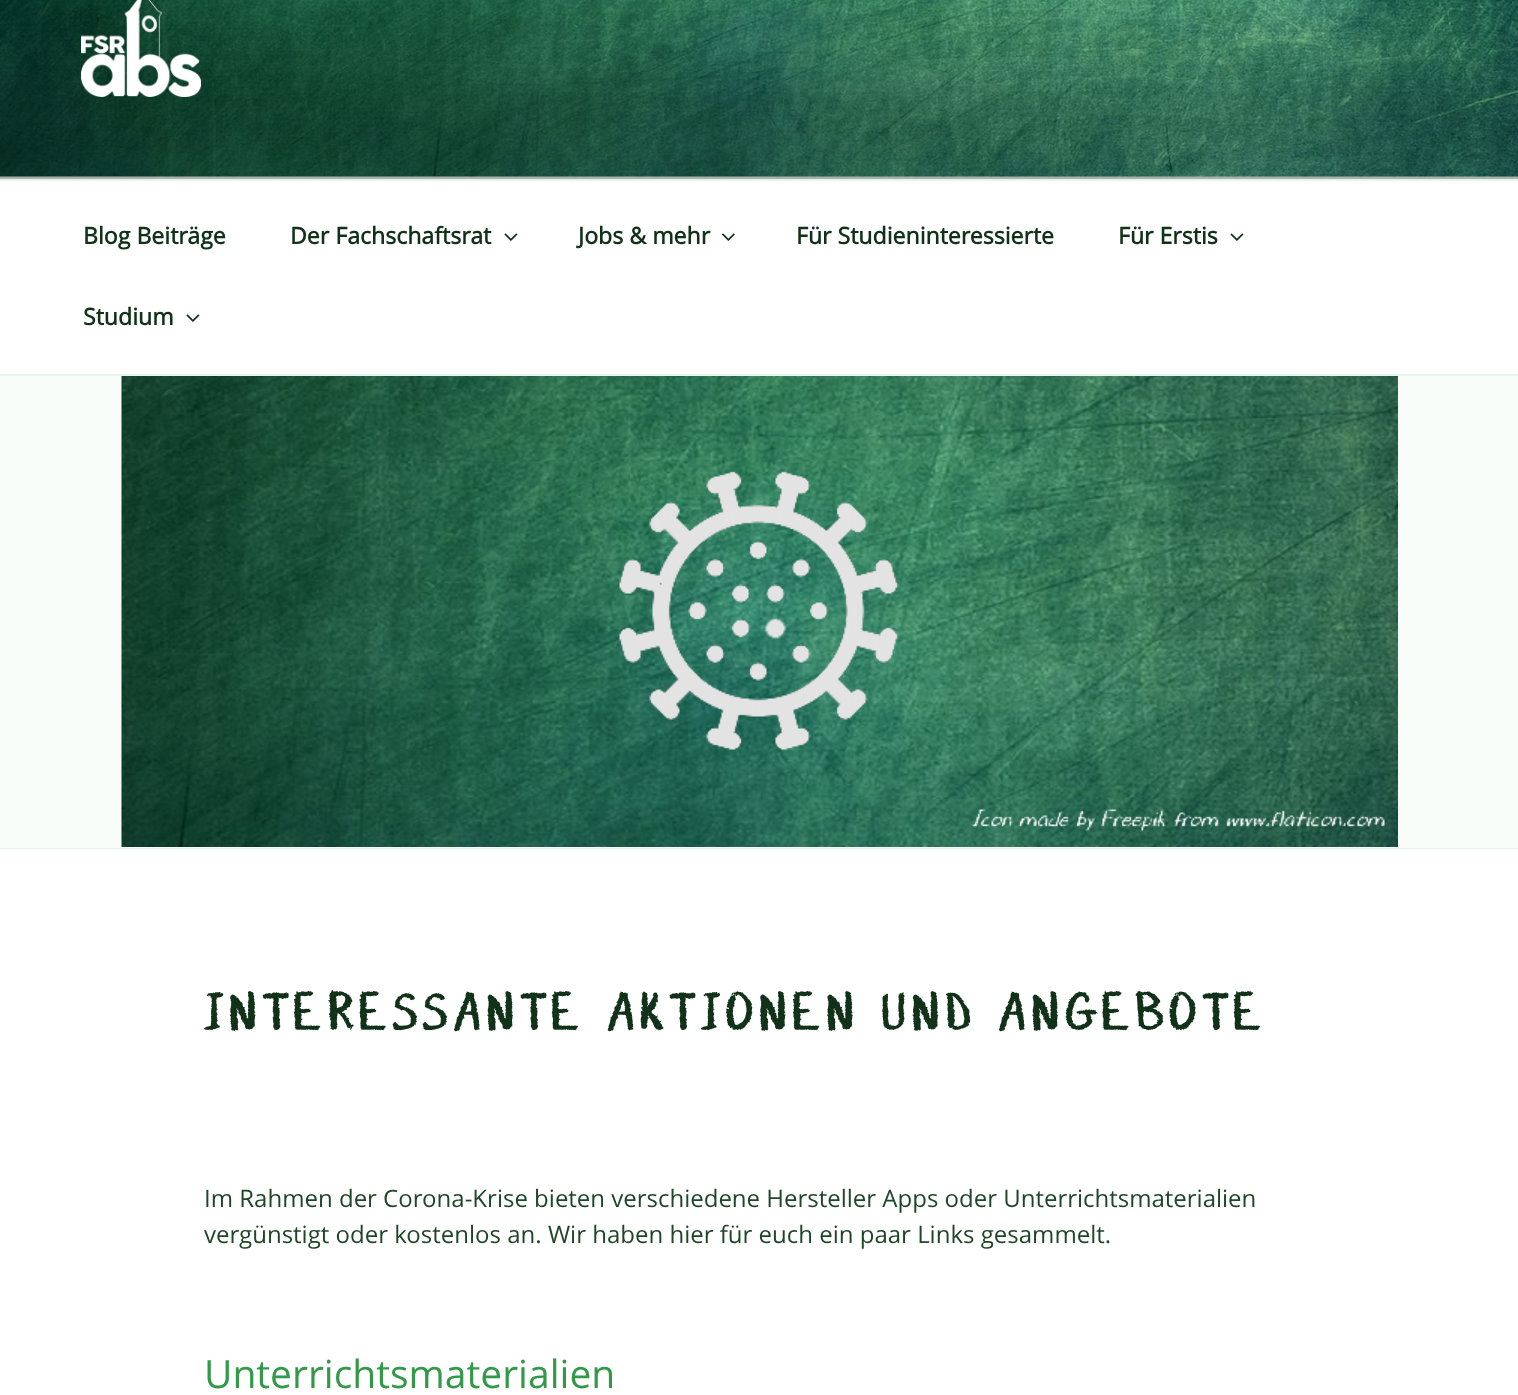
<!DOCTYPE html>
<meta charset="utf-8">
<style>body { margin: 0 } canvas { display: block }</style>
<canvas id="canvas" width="1518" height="1395"></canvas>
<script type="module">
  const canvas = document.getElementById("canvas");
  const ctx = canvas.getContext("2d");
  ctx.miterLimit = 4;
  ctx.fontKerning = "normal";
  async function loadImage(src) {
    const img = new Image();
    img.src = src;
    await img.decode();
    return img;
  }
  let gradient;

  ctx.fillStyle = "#f7fcf8";
  ctx.fillRect(0, 0, 1518, 1395);
  ctx.drawImage(await loadImage("img1.png"), 0, 0, 1518, 177);
  gradient = ctx.createLinearGradient(759, -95, 759, 179);
  gradient.addColorStop(0, "rgba(0, 0, 0, 0)");
  gradient.addColorStop(0.75, "rgba(0, 0, 0, 0.3)");
  gradient.addColorStop(1, "rgba(0, 0, 0, 0.3)");
  ctx.fillStyle = gradient;
  ctx.fillRect(0, 0, 1518, 179);
  ctx.drawImage(await loadImage("img2.png"), 81, 0, 120, 97);
  ctx.fillStyle = "#ffffff";
  ctx.fillRect(0, 181, 1518, 193);
  ctx.fillStyle = "#e4f6e8";
  ctx.fillRect(0, 179, 1518, 2);
  ctx.fillRect(0, 374, 1518, 2);
  ctx.font = "bold 23.1px Open Sans";
  ctx.fillStyle = "#113218";
  ctx.fillText("Blog Beiträge", 83, 244);
  ctx.fillText("Der Fachschaftsrat", 290, 244);
  ctx.drawImage(await loadImage("img3.png"), 504, 233, 14, 8);
  ctx.fillText("Jobs & mehr", 578, 244);
  ctx.drawImage(await loadImage("img4.png"), 722, 233, 13, 8);
  ctx.fillText("Für Studieninteressierte", 796, 244);
  ctx.fillText("Für Erstis", 1118, 244);
  ctx.drawImage(await loadImage("img3.png"), 1230, 233, 14, 8);
  ctx.fillText("Studium", 83, 325);
  ctx.drawImage(await loadImage("img3.png"), 186, 314, 14, 8);
  ctx.fillStyle = "#e4f6e8";
  ctx.fillRect(0, 848, 1518, 1);
  ctx.drawImage(await loadImage("img5.png"), 121, 376, 1277, 471);
  ctx.fillStyle = "#ffffff";
  ctx.fillRect(0, 849, 1518, 546);
  ctx.letterSpacing = "6.7px";
  ctx.font = "bold 48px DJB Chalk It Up";
  ctx.fillStyle = "#113218";
  ctx.fillText("INTERESSANTE AKTIONEN UND ANGEBOTE", 204, 1030);
  ctx.letterSpacing = "0px";
  ctx.font = "24px Open Sans";
  ctx.fillStyle = "#1f4727";
  ctx.fillText("Im Rahmen der Corona-Krise bieten verschiedene Hersteller Apps oder Unterrichtsmaterialien", 204, 1207);
  ctx.fillText("vergünstigt oder kostenlos an. Wir haben hier für euch ein paar Links gesammelt.", 204, 1243);
  ctx.font = "39px Open Sans";
  ctx.fillStyle = "#339949";
  ctx.fillText("Unterrichtsmaterialien", 204, 1388);
</script>
